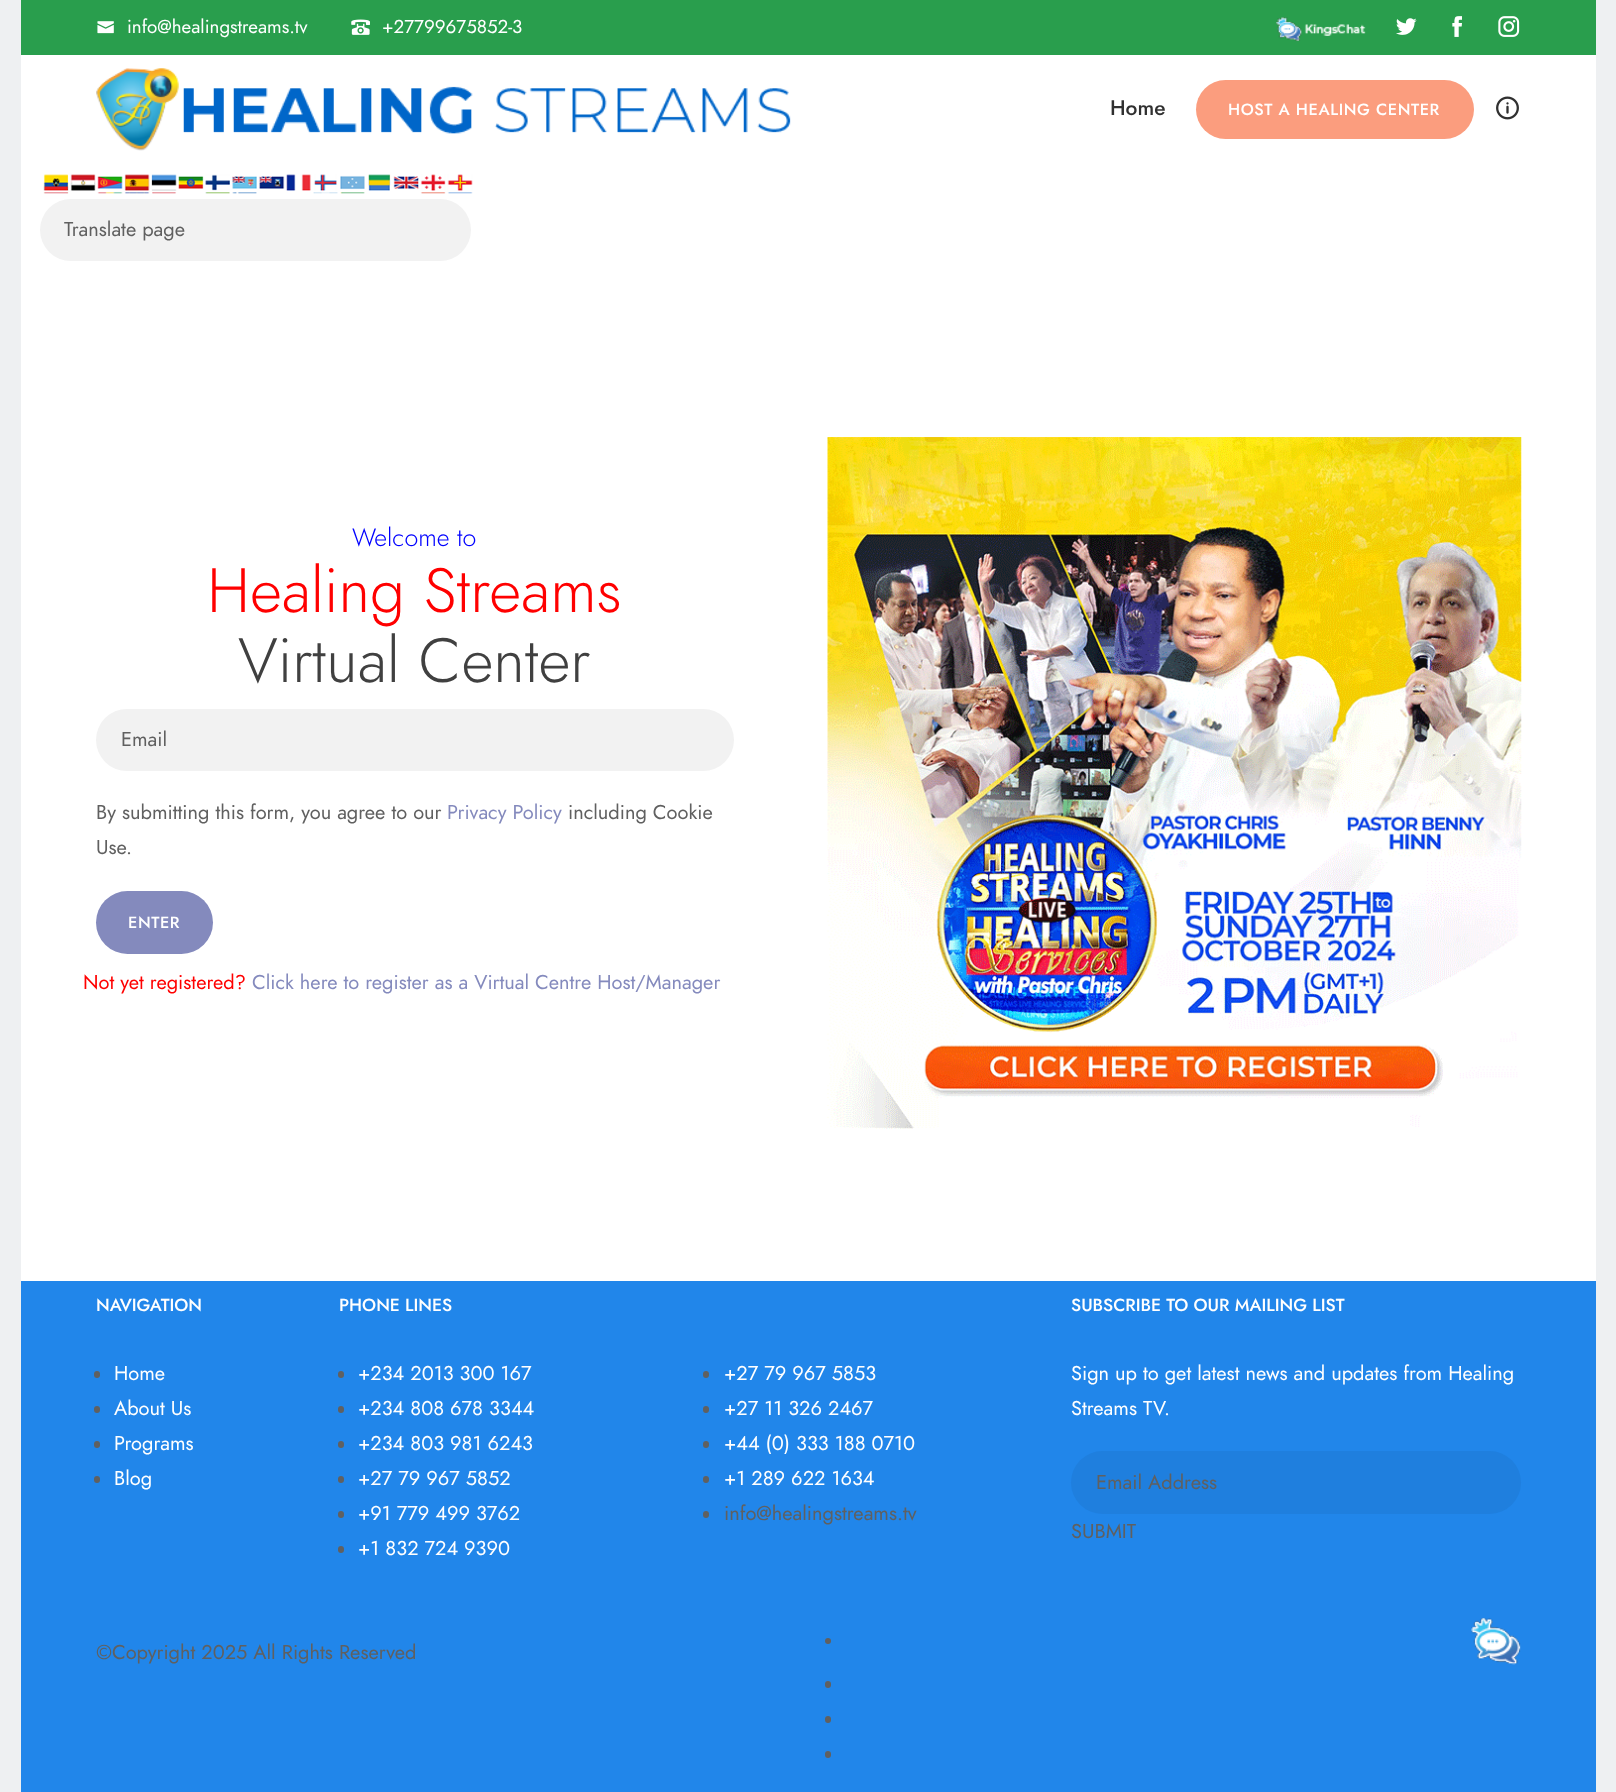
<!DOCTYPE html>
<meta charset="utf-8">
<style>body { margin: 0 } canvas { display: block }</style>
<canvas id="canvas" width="1616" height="1792"></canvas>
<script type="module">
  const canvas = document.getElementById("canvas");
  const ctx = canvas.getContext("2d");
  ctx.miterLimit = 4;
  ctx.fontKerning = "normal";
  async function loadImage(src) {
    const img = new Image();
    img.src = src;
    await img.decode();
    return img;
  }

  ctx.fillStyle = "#eef0f2";
  ctx.fillRect(0, 0, 1616, 1792);
  ctx.fillStyle = "#299e4d";
  ctx.fillRect(21, 0, 1575, 55);
  ctx.drawImage(await loadImage("img1.png"), 97, 21, 17, 13);
  ctx.font = "18.75px Jost";
  ctx.fillStyle = "#ffffff";
  ctx.fillText("info@healingstreams.tv", 127, 33);
  ctx.drawImage(await loadImage("img2.png"), 351, 19, 19, 16);
  ctx.fillText("+27799675852-3", 382, 33);
  ctx.drawImage(await loadImage("img3.png"), 1276, 17, 90, 24);
  ctx.drawImage(await loadImage("img4.png"), 1396, 18, 21, 17);
  ctx.drawImage(await loadImage("img5.png"), 1452, 16, 10, 21);
  ctx.drawImage(await loadImage("img6.png"), 1498, 16, 22, 21);
  ctx.fillRect(21, 55, 1575, 1226);
  ctx.drawImage(await loadImage("img7.png"), 96, 68, 695, 83);
  ctx.font = "500 21px Jost";
  ctx.fillStyle = "#303030";
  ctx.fillText("Home", 1110, 115);
  ctx.fillStyle = "#fb9d7e";
  ctx.beginPath();
  ctx.roundRect(1196, 80, 278, 59, 29.5);
  ctx.fill();
  ctx.letterSpacing = "0.6px";
  ctx.font = "500 16.25px Jost";
  ctx.fillStyle = "#ffffff";
  ctx.fillText("HOST A HEALING CENTER", 1228, 115);
  ctx.drawImage(await loadImage("img8.png"), 1496, 96, 23, 24);
  ctx.drawImage(await loadImage("img9.png"), 43, 174, 430, 20);
  ctx.fillStyle = "#f2f2f2";
  ctx.beginPath();
  ctx.roundRect(40, 199, 431, 62, 31);
  ctx.fill();
  ctx.letterSpacing = "0px";
  ctx.font = "20px Jost";
  ctx.fillStyle = "#606060";
  ctx.fillText("Translate page", 64, 236);
  ctx.font = "300 25px Jost";
  ctx.fillStyle = "#0000ff";
  ctx.fillText("Welcome to", 352, 546);
  ctx.font = "300 62.5px Jost";
  ctx.fillStyle = "#ff0000";
  ctx.fillText("Healing Streams", 207, 612);
  ctx.fillStyle = "#404040";
  ctx.fillText("Virtual Center", 238, 682);
  ctx.fillStyle = "#f2f2f2";
  ctx.beginPath();
  ctx.roundRect(96, 709, 638, 62, 31);
  ctx.fill();
  ctx.font = "20px Jost";
  ctx.fillStyle = "#606060";
  ctx.fillText("Email", 121, 746);
  ctx.fillText("By submitting this form, you agree to our", 96, 819);
  ctx.fillStyle = "#848abd";
  ctx.fillText("Privacy Policy", 447, 819);
  ctx.fillStyle = "#606060";
  ctx.fillText("including Cookie", 568, 819);
  ctx.fillText("Use.", 96, 854);
  ctx.fillStyle = "#848abd";
  ctx.beginPath();
  ctx.roundRect(96, 891, 117, 63, 31.5);
  ctx.fill();
  ctx.letterSpacing = "0.6px";
  ctx.font = "500 16.25px Jost";
  ctx.fillStyle = "#ffffff";
  ctx.fillText("ENTER", 128, 928);
  ctx.letterSpacing = "0px";
  ctx.font = "20px Jost";
  ctx.fillStyle = "#ff0000";
  ctx.fillText("Not yet registered?", 83, 989);
  ctx.fillStyle = "#848abd";
  ctx.fillText("Click here to register as a Virtual Centre Host/Manager", 252, 989);
  ctx.drawImage(await loadImage("img10.png"), 827, 437, 695, 692);
  ctx.fillStyle = "#2186ea";
  ctx.fillRect(21, 1281, 1575, 511);
  ctx.font = "500 17.5px Jost";
  ctx.fillStyle = "#ffffff";
  ctx.fillText("NAVIGATION", 96, 1311);
  ctx.fillStyle = "#606060";
  ctx.beginPath();
  ctx.roundRect(94, 1371, 6, 7, 3);
  ctx.fill();
  ctx.font = "20px Jost";
  ctx.fillStyle = "#ffffff";
  ctx.fillText("Home", 114, 1380);
  ctx.fillStyle = "#606060";
  ctx.beginPath();
  ctx.roundRect(94, 1406, 6, 7, 3);
  ctx.fill();
  ctx.fillStyle = "#ffffff";
  ctx.fillText("About Us", 114, 1415);
  ctx.fillStyle = "#606060";
  ctx.beginPath();
  ctx.roundRect(94, 1441, 6, 7, 3);
  ctx.fill();
  ctx.fillStyle = "#ffffff";
  ctx.fillText("Programs", 114, 1450);
  ctx.fillStyle = "#606060";
  ctx.beginPath();
  ctx.roundRect(94, 1476, 6, 7, 3);
  ctx.fill();
  ctx.fillStyle = "#ffffff";
  ctx.fillText("Blog", 114, 1485);
  ctx.font = "500 17.5px Jost";
  ctx.fillText("PHONE LINES", 339, 1311);
  ctx.fillStyle = "#606060";
  ctx.beginPath();
  ctx.roundRect(338, 1371, 6, 7, 3);
  ctx.fill();
  ctx.font = "20px Jost";
  ctx.fillStyle = "#ffffff";
  ctx.fillText("+234 2013 300 167", 358, 1380);
  ctx.fillStyle = "#606060";
  ctx.beginPath();
  ctx.roundRect(338, 1406, 6, 7, 3);
  ctx.fill();
  ctx.fillStyle = "#ffffff";
  ctx.fillText("+234 808 678 3344", 358, 1415);
  ctx.fillStyle = "#606060";
  ctx.beginPath();
  ctx.roundRect(338, 1441, 6, 7, 3);
  ctx.fill();
  ctx.fillStyle = "#ffffff";
  ctx.fillText("+234 803 981 6243", 358, 1450);
  ctx.fillStyle = "#606060";
  ctx.beginPath();
  ctx.roundRect(338, 1476, 6, 7, 3);
  ctx.fill();
  ctx.fillStyle = "#ffffff";
  ctx.fillText("+27 79 967 5852", 358, 1485);
  ctx.fillStyle = "#606060";
  ctx.beginPath();
  ctx.roundRect(338, 1511, 6, 7, 3);
  ctx.fill();
  ctx.fillStyle = "#ffffff";
  ctx.fillText("+91 779 499 3762", 358, 1520);
  ctx.fillStyle = "#606060";
  ctx.beginPath();
  ctx.roundRect(338, 1546, 6, 7, 3);
  ctx.fill();
  ctx.fillStyle = "#ffffff";
  ctx.fillText("+1 832 724 9390", 358, 1555);
  ctx.fillStyle = "#606060";
  ctx.beginPath();
  ctx.roundRect(703, 1371, 6, 7, 3);
  ctx.fill();
  ctx.fillStyle = "#ffffff";
  ctx.fillText("+27 79 967 5853", 724, 1380);
  ctx.fillStyle = "#606060";
  ctx.beginPath();
  ctx.roundRect(703, 1406, 6, 7, 3);
  ctx.fill();
  ctx.fillStyle = "#ffffff";
  ctx.fillText("+27 11 326 2467", 724, 1415);
  ctx.fillStyle = "#606060";
  ctx.beginPath();
  ctx.roundRect(703, 1441, 6, 7, 3);
  ctx.fill();
  ctx.fillStyle = "#ffffff";
  ctx.fillText("+44 (0) 333 188 0710", 724, 1450);
  ctx.fillStyle = "#606060";
  ctx.beginPath();
  ctx.roundRect(703, 1476, 6, 7, 3);
  ctx.fill();
  ctx.fillStyle = "#ffffff";
  ctx.fillText("+1 289 622 1634", 724, 1485);
  ctx.fillStyle = "#606060";
  ctx.beginPath();
  ctx.roundRect(703, 1511, 6, 7, 3);
  ctx.fill();
  ctx.fillText("info@healingstreams.tv", 724, 1520);
  ctx.font = "500 17.5px Jost";
  ctx.fillStyle = "#ffffff";
  ctx.fillText("SUBSCRIBE TO OUR MAILING LIST", 1071, 1311);
  ctx.font = "20px Jost";
  ctx.fillText("Sign up to get latest news and updates from Healing", 1071, 1380);
  ctx.fillText("Streams TV.", 1071, 1415);
  ctx.fillStyle = "#1f7fde";
  ctx.beginPath();
  ctx.roundRect(1071, 1451, 450, 63, 31.5);
  ctx.fill();
  ctx.fillStyle = "#606060";
  ctx.fillText("Email Address", 1096, 1489);
  ctx.fillText("SUBMIT", 1071, 1538);
  ctx.fillText("©Copyright 2025 All Rights Reserved", 96, 1659);
  ctx.beginPath();
  ctx.arc(828, 1641, 3, 0, Math.PI * 2);
  ctx.fill();
  ctx.drawImage(await loadImage("img11.png"), 1471, 1618, 50, 47);
  ctx.beginPath();
  ctx.roundRect(825, 1681, 6, 7, 3);
  ctx.fill();
  ctx.beginPath();
  ctx.roundRect(825, 1716, 6, 7, 3);
  ctx.fill();
  ctx.beginPath();
  ctx.roundRect(825, 1751, 6, 7, 3);
  ctx.fill();
</script>
